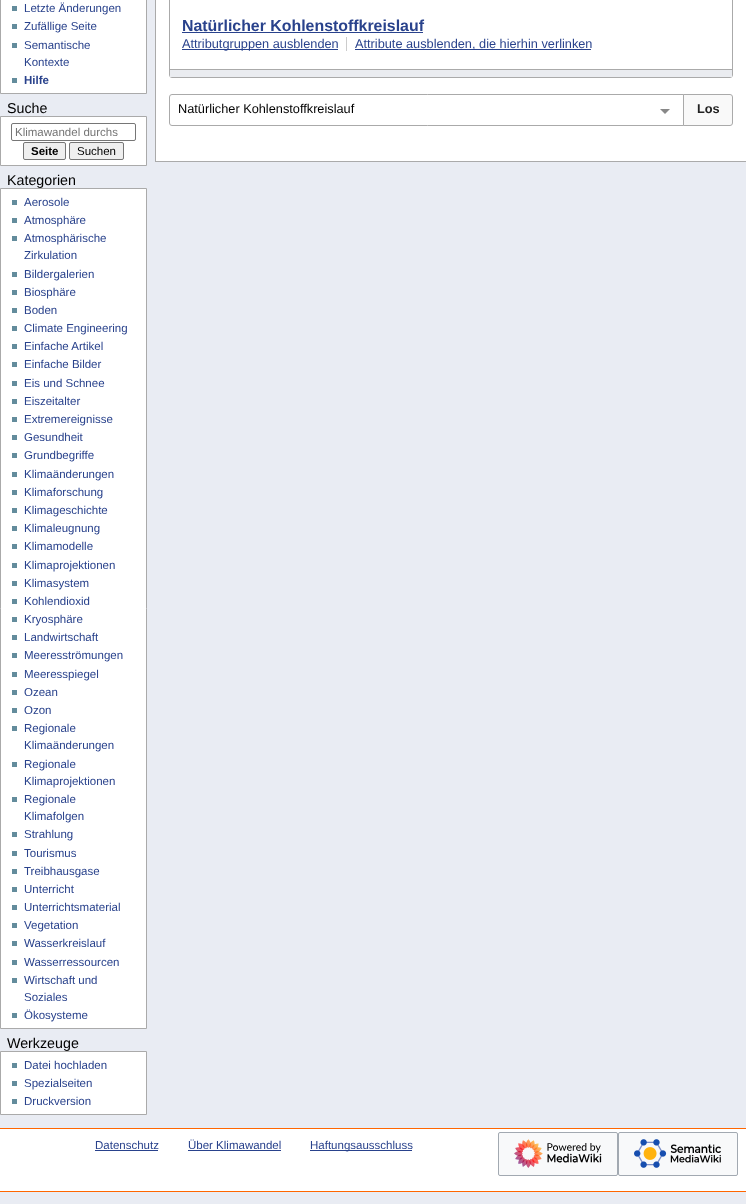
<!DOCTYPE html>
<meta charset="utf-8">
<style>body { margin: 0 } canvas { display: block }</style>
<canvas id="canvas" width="746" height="1204"></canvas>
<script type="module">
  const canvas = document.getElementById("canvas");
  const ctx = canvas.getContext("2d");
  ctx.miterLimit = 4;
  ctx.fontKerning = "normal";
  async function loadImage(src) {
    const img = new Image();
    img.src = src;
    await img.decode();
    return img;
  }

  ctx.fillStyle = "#e9ecf3";
  ctx.fillRect(0, 0, 746, 1204);
  ctx.fillStyle = "#ffffff";
  ctx.beginPath();
  ctx.rect(0.5, -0.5, 146, 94);
  ctx.fill();
  ctx.strokeStyle = "#aaaaaa";
  ctx.stroke();
  ctx.fillStyle = "#638c9c";
  ctx.fillRect(12, 6, 5, 5);
  ctx.font = "11.5px Liberation Sans";
  ctx.fillStyle = "#29428c";
  ctx.fillText("Letzte Änderungen", 24, 12);
  ctx.fillStyle = "#638c9c";
  ctx.fillRect(12, 24, 5, 5);
  ctx.fillStyle = "#29428c";
  ctx.fillText("Zufällige Seite", 24, 30);
  ctx.fillStyle = "#638c9c";
  ctx.fillRect(12, 43, 5, 5);
  ctx.fillStyle = "#29428c";
  ctx.fillText("Semantische", 24, 49);
  ctx.fillText("Kontexte", 24, 66);
  ctx.fillStyle = "#638c9c";
  ctx.fillRect(12, 78, 5, 5);
  ctx.font = "bold 11.5px Liberation Sans";
  ctx.fillStyle = "#29428c";
  ctx.fillText("Hilfe", 24, 84);
  ctx.font = "14.25px Liberation Sans";
  ctx.fillStyle = "#000000";
  ctx.fillText("Suche", 7, 113);
  ctx.fillStyle = "#ffffff";
  ctx.beginPath();
  ctx.rect(0.5, 116.5, 146, 49);
  ctx.fill();
  ctx.stroke();
  ctx.beginPath();
  ctx.roundRect(11.5, 123.5, 124, 17, 1.5);
  ctx.strokeStyle = "#767676";
  ctx.stroke();
  ctx.font = "11.5px Liberation Sans";
  ctx.fillStyle = "#757575";
  ctx.fillText("Klimawandel durchs", 15, 136);
  ctx.fillStyle = "#efefef";
  ctx.beginPath();
  ctx.roundRect(23.5, 142.5, 42, 17, 1.5);
  ctx.fill();
  ctx.stroke();
  ctx.font = "bold 11.5px Liberation Sans";
  ctx.fillStyle = "#000000";
  ctx.fillText("Seite", 31, 155);
  ctx.fillStyle = "#efefef";
  ctx.beginPath();
  ctx.roundRect(69.5, 142.5, 54, 17, 1.5);
  ctx.fill();
  ctx.stroke();
  ctx.font = "11.5px Liberation Sans";
  ctx.fillStyle = "#000000";
  ctx.fillText("Suchen", 77, 155);
  ctx.font = "14.25px Liberation Sans";
  ctx.fillText("Kategorien", 7, 185);
  ctx.fillStyle = "#ffffff";
  ctx.beginPath();
  ctx.rect(0.5, 188.5, 146, 840);
  ctx.fill();
  ctx.strokeStyle = "#aaaaaa";
  ctx.stroke();
  ctx.fillStyle = "#638c9c";
  ctx.fillRect(12, 200, 5, 5);
  ctx.font = "11.5px Liberation Sans";
  ctx.fillStyle = "#29428c";
  ctx.fillText("Aerosole", 24, 206);
  ctx.fillStyle = "#638c9c";
  ctx.fillRect(12, 218, 5, 5);
  ctx.fillStyle = "#29428c";
  ctx.fillText("Atmosphäre", 24, 224);
  ctx.fillStyle = "#638c9c";
  ctx.fillRect(12, 236, 5, 5);
  ctx.fillStyle = "#29428c";
  ctx.fillText("Atmosphärische", 24, 242);
  ctx.fillText("Zirkulation", 24, 259);
  ctx.fillStyle = "#638c9c";
  ctx.fillRect(12, 272, 5, 5);
  ctx.fillStyle = "#29428c";
  ctx.fillText("Bildergalerien", 24, 278);
  ctx.fillStyle = "#638c9c";
  ctx.fillRect(12, 290, 5, 5);
  ctx.fillStyle = "#29428c";
  ctx.fillText("Biosphäre", 24, 296);
  ctx.fillStyle = "#638c9c";
  ctx.fillRect(12, 308, 5, 5);
  ctx.fillStyle = "#29428c";
  ctx.fillText("Boden", 24, 314);
  ctx.fillStyle = "#638c9c";
  ctx.fillRect(12, 326, 5, 5);
  ctx.fillStyle = "#29428c";
  ctx.fillText("Climate Engineering", 24, 332);
  ctx.fillStyle = "#638c9c";
  ctx.fillRect(12, 344, 5, 5);
  ctx.fillStyle = "#29428c";
  ctx.fillText("Einfache Artikel", 24, 350);
  ctx.fillStyle = "#638c9c";
  ctx.fillRect(12, 362, 5, 5);
  ctx.fillStyle = "#29428c";
  ctx.fillText("Einfache Bilder", 24, 368);
  ctx.fillStyle = "#638c9c";
  ctx.fillRect(12, 381, 5, 5);
  ctx.fillStyle = "#29428c";
  ctx.fillText("Eis und Schnee", 24, 387);
  ctx.fillStyle = "#638c9c";
  ctx.fillRect(12, 399, 5, 5);
  ctx.fillStyle = "#29428c";
  ctx.fillText("Eiszeitalter", 24, 405);
  ctx.fillStyle = "#638c9c";
  ctx.fillRect(12, 417, 5, 5);
  ctx.fillStyle = "#29428c";
  ctx.fillText("Extremereignisse", 24, 423);
  ctx.fillStyle = "#638c9c";
  ctx.fillRect(12, 435, 5, 5);
  ctx.fillStyle = "#29428c";
  ctx.fillText("Gesundheit", 24, 441);
  ctx.fillStyle = "#638c9c";
  ctx.fillRect(12, 453, 5, 5);
  ctx.fillStyle = "#29428c";
  ctx.fillText("Grundbegriffe", 24, 459);
  ctx.fillStyle = "#638c9c";
  ctx.fillRect(12, 472, 5, 5);
  ctx.fillStyle = "#29428c";
  ctx.fillText("Klimaänderungen", 24, 478);
  ctx.fillStyle = "#638c9c";
  ctx.fillRect(12, 490, 5, 5);
  ctx.fillStyle = "#29428c";
  ctx.fillText("Klimaforschung", 24, 496);
  ctx.fillStyle = "#638c9c";
  ctx.fillRect(12, 508, 5, 5);
  ctx.fillStyle = "#29428c";
  ctx.fillText("Klimageschichte", 24, 514);
  ctx.fillStyle = "#638c9c";
  ctx.fillRect(12, 526, 5, 5);
  ctx.fillStyle = "#29428c";
  ctx.fillText("Klimaleugnung", 24, 532);
  ctx.fillStyle = "#638c9c";
  ctx.fillRect(12, 544, 5, 5);
  ctx.fillStyle = "#29428c";
  ctx.fillText("Klimamodelle", 24, 550);
  ctx.fillStyle = "#638c9c";
  ctx.fillRect(12, 563, 5, 5);
  ctx.fillStyle = "#29428c";
  ctx.fillText("Klimaprojektionen", 24, 569);
  ctx.fillStyle = "#638c9c";
  ctx.fillRect(12, 581, 5, 5);
  ctx.fillStyle = "#29428c";
  ctx.fillText("Klimasystem", 24, 587);
  ctx.fillStyle = "#638c9c";
  ctx.fillRect(12, 599, 5, 5);
  ctx.fillStyle = "#29428c";
  ctx.fillText("Kohlendioxid", 24, 605);
  ctx.fillStyle = "#638c9c";
  ctx.fillRect(12, 617, 5, 5);
  ctx.fillStyle = "#29428c";
  ctx.fillText("Kryosphäre", 24, 623);
  ctx.fillStyle = "#638c9c";
  ctx.fillRect(12, 635, 5, 5);
  ctx.fillStyle = "#29428c";
  ctx.fillText("Landwirtschaft", 24, 641);
  ctx.fillStyle = "#638c9c";
  ctx.fillRect(12, 653, 5, 5);
  ctx.fillStyle = "#29428c";
  ctx.fillText("Meeresströmungen", 24, 659);
  ctx.fillStyle = "#638c9c";
  ctx.fillRect(12, 672, 5, 5);
  ctx.fillStyle = "#29428c";
  ctx.fillText("Meeresspiegel", 24, 678);
  ctx.fillStyle = "#638c9c";
  ctx.fillRect(12, 690, 5, 5);
  ctx.fillStyle = "#29428c";
  ctx.fillText("Ozean", 24, 696);
  ctx.fillStyle = "#638c9c";
  ctx.fillRect(12, 708, 5, 5);
  ctx.fillStyle = "#29428c";
  ctx.fillText("Ozon", 24, 714);
  ctx.fillStyle = "#638c9c";
  ctx.fillRect(12, 726, 5, 5);
  ctx.fillStyle = "#29428c";
  ctx.fillText("Regionale", 24, 732);
  ctx.fillText("Klimaänderungen", 24, 749);
  ctx.fillStyle = "#638c9c";
  ctx.fillRect(12, 762, 5, 5);
  ctx.fillStyle = "#29428c";
  ctx.fillText("Regionale", 24, 768);
  ctx.fillText("Klimaprojektionen", 24, 785);
  ctx.fillStyle = "#638c9c";
  ctx.fillRect(12, 797, 5, 5);
  ctx.fillStyle = "#29428c";
  ctx.fillText("Regionale", 24, 803);
  ctx.fillText("Klimafolgen", 24, 820);
  ctx.fillStyle = "#638c9c";
  ctx.fillRect(12, 832, 5, 5);
  ctx.fillStyle = "#29428c";
  ctx.fillText("Strahlung", 24, 838);
  ctx.fillStyle = "#638c9c";
  ctx.fillRect(12, 851, 5, 5);
  ctx.fillStyle = "#29428c";
  ctx.fillText("Tourismus", 24, 857);
  ctx.fillStyle = "#638c9c";
  ctx.fillRect(12, 869, 5, 5);
  ctx.fillStyle = "#29428c";
  ctx.fillText("Treibhausgase", 24, 875);
  ctx.fillStyle = "#638c9c";
  ctx.fillRect(12, 887, 5, 5);
  ctx.fillStyle = "#29428c";
  ctx.fillText("Unterricht", 24, 893);
  ctx.fillStyle = "#638c9c";
  ctx.fillRect(12, 905, 5, 5);
  ctx.fillStyle = "#29428c";
  ctx.fillText("Unterrichtsmaterial", 24, 911);
  ctx.fillStyle = "#638c9c";
  ctx.fillRect(12, 923, 5, 5);
  ctx.fillStyle = "#29428c";
  ctx.fillText("Vegetation", 24, 929);
  ctx.fillStyle = "#638c9c";
  ctx.fillRect(12, 941, 5, 5);
  ctx.fillStyle = "#29428c";
  ctx.fillText("Wasserkreislauf", 24, 947);
  ctx.fillStyle = "#638c9c";
  ctx.fillRect(12, 960, 5, 5);
  ctx.fillStyle = "#29428c";
  ctx.fillText("Wasserressourcen", 24, 966);
  ctx.fillStyle = "#638c9c";
  ctx.fillRect(12, 978, 5, 5);
  ctx.fillStyle = "#29428c";
  ctx.fillText("Wirtschaft und", 24, 984);
  ctx.fillText("Soziales", 24, 1001);
  ctx.fillStyle = "#638c9c";
  ctx.fillRect(12, 1013, 5, 5);
  ctx.fillStyle = "#29428c";
  ctx.fillText("Ökosysteme", 24, 1019);
  ctx.font = "14.25px Liberation Sans";
  ctx.fillStyle = "#000000";
  ctx.fillText("Werkzeuge", 7, 1048);
  ctx.fillStyle = "#ffffff";
  ctx.beginPath();
  ctx.rect(0.5, 1051.5, 146, 63);
  ctx.fill();
  ctx.stroke();
  ctx.fillStyle = "#638c9c";
  ctx.fillRect(12, 1063, 5, 5);
  ctx.font = "11.5px Liberation Sans";
  ctx.fillStyle = "#29428c";
  ctx.fillText("Datei hochladen", 24, 1069);
  ctx.fillStyle = "#638c9c";
  ctx.fillRect(12, 1081, 5, 5);
  ctx.fillStyle = "#29428c";
  ctx.fillText("Spezialseiten", 24, 1087);
  ctx.fillStyle = "#638c9c";
  ctx.fillRect(12, 1099, 5, 5);
  ctx.fillStyle = "#29428c";
  ctx.fillText("Druckversion", 24, 1105);
  ctx.fillStyle = "#ffffff";
  ctx.fillRect(0, 1129, 746, 62);
  ctx.fillStyle = "#ff6600";
  ctx.fillRect(0, 1128, 746, 1);
  ctx.fillRect(0, 1191, 746, 1);
  ctx.fillStyle = "#29428c";
  ctx.fillText("Datenschutz", 95, 1149);
  ctx.fillRect(95, 1150, 63, 1);
  ctx.fillText("Über Klimawandel", 188, 1149);
  ctx.fillRect(188, 1150, 93, 1);
  ctx.fillRect(310, 1150, 102, 1);
  ctx.fillText("Haftungsausschluss", 310, 1149);
  ctx.fillStyle = "#f8f9fa";
  ctx.beginPath();
  ctx.roundRect(498.5, 1132.5, 119, 43, 1.5);
  ctx.fill();
  ctx.strokeStyle = "#a2a9b1";
  ctx.stroke();
  ctx.drawImage(await loadImage("img1.png"), 514, 1139, 88, 29);
  ctx.beginPath();
  ctx.roundRect(618.5, 1132.5, 119, 43, 1.5);
  ctx.fill();
  ctx.stroke();
  ctx.drawImage(await loadImage("img2.png"), 634, 1139, 87, 29);
  ctx.fillStyle = "#ffffff";
  ctx.fillRect(156, 0, 590, 161);
  ctx.fillStyle = "#aaaaaa";
  ctx.fillRect(155, 161, 591, 1);
  ctx.fillRect(155, 0, 1, 162);
  ctx.beginPath();
  ctx.roundRect(169.5, -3.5, 563, 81, 2.5);
  ctx.strokeStyle = "#aaaaaa";
  ctx.stroke();
  ctx.fillRect(170, 69, 562, 1);
  ctx.font = "bold 15.9px Liberation Sans";
  ctx.fillStyle = "#29428c";
  ctx.fillText("Natürlicher Kohlenstoffkreislauf", 182, 31);
  ctx.fillRect(182, 32, 241, 1);
  ctx.fillRect(182, 49, 156, 1);
  ctx.font = "12.75px Liberation Sans";
  ctx.fillText("Attributgruppen ausblenden", 182, 48);
  ctx.fillRect(355, 49, 236, 1);
  ctx.fillText("Attribute ausblenden, die hierhin verlinken", 355, 48);
  ctx.fillStyle = "#cccccc";
  ctx.fillRect(346, 37, 1, 14);
  ctx.fillStyle = "#eaecf0";
  ctx.fillRect(170, 70, 562, 7);
  ctx.fillStyle = "#888888";
  ctx.beginPath();
  ctx.moveTo(660, 109);
  ctx.lineTo(665, 114);
  ctx.lineTo(670, 109);
  ctx.closePath();
  ctx.fill();
  ctx.beginPath();
  ctx.roundRect(169.5, 94.5, 514, 31, [2.5, 0, 0, 2.5]);
  ctx.stroke();
  ctx.fillStyle = "#000000";
  ctx.fillText("Natürlicher Kohlenstoffkreislauf", 178, 113);
  ctx.fillStyle = "#f9f9f9";
  ctx.beginPath();
  ctx.roundRect(683.5, 94.5, 49, 31, [0, 2.5, 2.5, 0]);
  ctx.fill();
  ctx.stroke();
  ctx.font = "bold 12.75px Liberation Sans";
  ctx.fillStyle = "#222222";
  ctx.fillText("Los", 697, 113);
</script>
